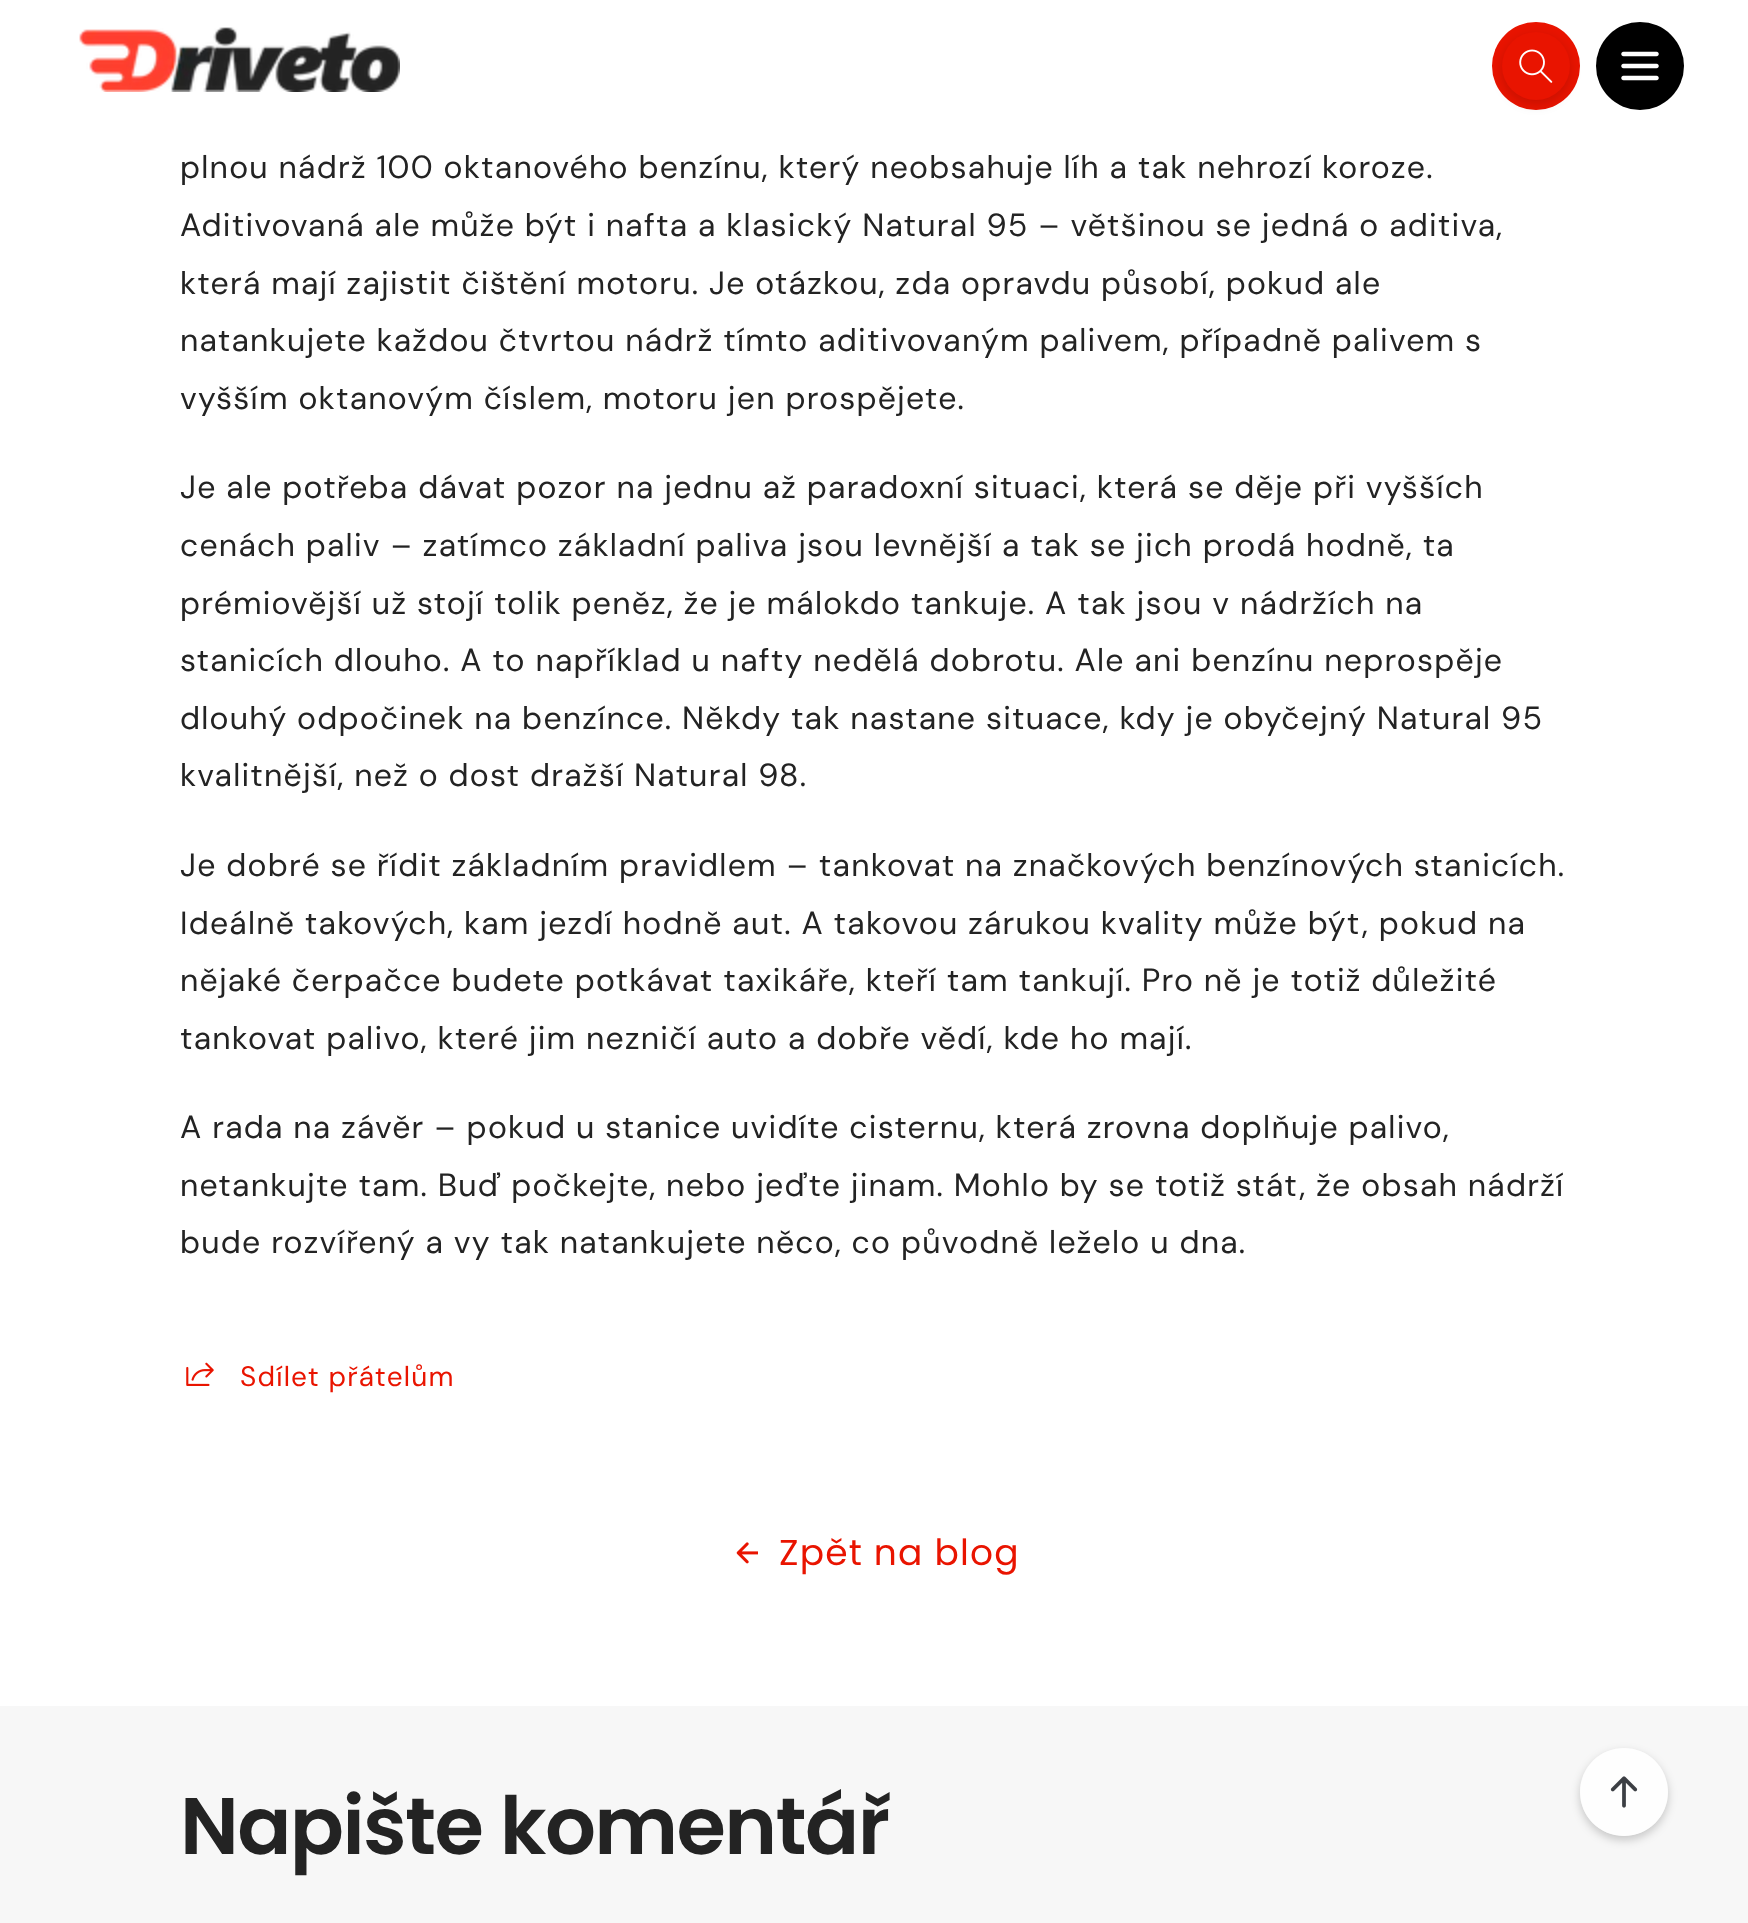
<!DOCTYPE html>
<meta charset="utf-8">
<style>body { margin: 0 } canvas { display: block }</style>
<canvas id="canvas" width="1748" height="1923"></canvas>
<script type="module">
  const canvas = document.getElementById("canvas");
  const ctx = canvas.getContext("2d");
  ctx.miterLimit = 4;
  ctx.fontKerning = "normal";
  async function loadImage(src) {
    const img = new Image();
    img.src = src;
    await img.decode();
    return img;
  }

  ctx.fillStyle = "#ffffff";
  ctx.fillRect(0, 0, 1748, 1923);
  ctx.drawImage(await loadImage("img1.png"), 79, 27, 321, 65);
  ctx.fillStyle = "#e91400";
  ctx.beginPath();
  ctx.arc(1536, 66, 44, 0, Math.PI * 2);
  ctx.fill();
  ctx.fillStyle = "rgba(0, 0, 0, 0.15)";
  ctx.filter = "blur(6px)";
  ctx.beginPath();
  ctx.roundRect(1502, 36, 68, 68, 34);
  ctx.fill();
  ctx.filter = "none";
  ctx.fillStyle = "#e91400";
  ctx.beginPath();
  ctx.arc(1536, 66, 34, 0, Math.PI * 2);
  ctx.fill();
  ctx.drawImage(await loadImage("img2.png"), 1519, 49, 34, 34);
  ctx.fillStyle = "#000000";
  ctx.beginPath();
  ctx.arc(1640, 66, 44, 0, Math.PI * 2);
  ctx.fill();
  ctx.drawImage(await loadImage("img3.png"), 1621, 51, 38, 30);
  ctx.letterSpacing = "1.2px";
  ctx.font = "32px DM Sans";
  ctx.fillStyle = "#232323";
  ctx.fillText("plnou nádrž 100 oktanového benzínu, který neobsahuje líh a tak nehrozí koroze.", 180, 178);
  ctx.fillText("Aditivovaná ale může být i nafta a klasický Natural 95 – většinou se jedná o aditiva,", 180, 236);
  ctx.fillText("která mají zajistit čištění motoru. Je otázkou, zda opravdu působí, pokud ale", 180, 294);
  ctx.fillText("natankujete každou čtvrtou nádrž tímto aditivovaným palivem, případně palivem s", 180, 351);
  ctx.fillText("vyšším oktanovým číslem, motoru jen prospějete.", 180, 409);
  ctx.fillText("Je ale potřeba dávat pozor na jednu až paradoxní situaci, která se děje při vyšších", 180, 498);
  ctx.fillText("cenách paliv – zatímco základní paliva jsou levnější a tak se jich prodá hodně, ta", 180, 556);
  ctx.fillText("prémiovější už stojí tolik peněz, že je málokdo tankuje. A tak jsou v nádržích na", 180, 614);
  ctx.fillText("stanicích dlouho. A to například u nafty nedělá dobrotu. Ale ani benzínu neprospěje", 180, 671);
  ctx.fillText("dlouhý odpočinek na benzínce. Někdy tak nastane situace, kdy je obyčejný Natural 95", 180, 729);
  ctx.fillText("kvalitnější, než o dost dražší Natural 98.", 180, 786);
  ctx.fillText("Je dobré se řídit základním pravidlem – tankovat na značkových benzínových stanicích.", 180, 876);
  ctx.fillText("Ideálně takových, kam jezdí hodně aut. A takovou zárukou kvality může být, pokud na", 180, 934);
  ctx.fillText("nějaké čerpačce budete potkávat taxikáře, kteří tam tankují. Pro ně je totiž důležité", 180, 991);
  ctx.fillText("tankovat palivo, které jim nezničí auto a dobře vědí, kde ho mají.", 180, 1049);
  ctx.fillText("A rada na závěr – pokud u stanice uvidíte cisternu, která zrovna doplňuje palivo,", 180, 1138);
  ctx.fillText("netankujte tam. Buď počkejte, nebo jeďte jinam. Mohlo by se totiž stát, že obsah nádrží", 180, 1196);
  ctx.fillText("bude rozvířený a vy tak natankujete něco, co původně leželo u dna.", 180, 1253);
  ctx.drawImage(await loadImage("img4.png"), 186, 1362, 28, 24);
  ctx.font = "28px 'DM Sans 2'";
  ctx.fillStyle = "#e91400";
  ctx.fillText("Sdílet přátelům", 240, 1386);
  ctx.drawImage(await loadImage("img5.png"), 736, 1542, 22, 22);
  ctx.font = "36px Poppins";
  ctx.fillText("Zpět na blog", 779, 1565);
  ctx.fillStyle = "#f7f7f7";
  ctx.fillRect(0, 1706, 1748, 217);
  ctx.letterSpacing = "-1.6px";
  ctx.font = "600 80px Poppins";
  ctx.fillStyle = "#232323";
  ctx.fillText("Napište komentář", 180, 1854);
  ctx.save();
  ctx.beginPath();
  ctx.moveTo(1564, 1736);
  ctx.lineTo(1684, 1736);
  ctx.lineTo(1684, 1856);
  ctx.lineTo(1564, 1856);
  ctx.closePath();
  ctx.moveTo(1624, 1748);
  ctx.bezierCurveTo(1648.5, 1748, 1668, 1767.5, 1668, 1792);
  ctx.bezierCurveTo(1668, 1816.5, 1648.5, 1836, 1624, 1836);
  ctx.bezierCurveTo(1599.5, 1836, 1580, 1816.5, 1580, 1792);
  ctx.bezierCurveTo(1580, 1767.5, 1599.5, 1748, 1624, 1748);
  ctx.closePath();
  ctx.clip("evenodd");
  ctx.fillStyle = "rgba(0, 0, 0, 0.2)";
  ctx.filter = "blur(5px)";
  ctx.beginPath();
  ctx.roundRect(1580, 1752, 88, 88, 44);
  ctx.fill();
  ctx.filter = "none";
  ctx.restore();
  ctx.fillStyle = "rgba(255, 255, 255, 0.8)";
  ctx.beginPath();
  ctx.arc(1624, 1792, 44, 0, Math.PI * 2);
  ctx.fill();
  ctx.drawImage(await loadImage("img6.png"), 1610, 1776, 28, 32);
</script>
